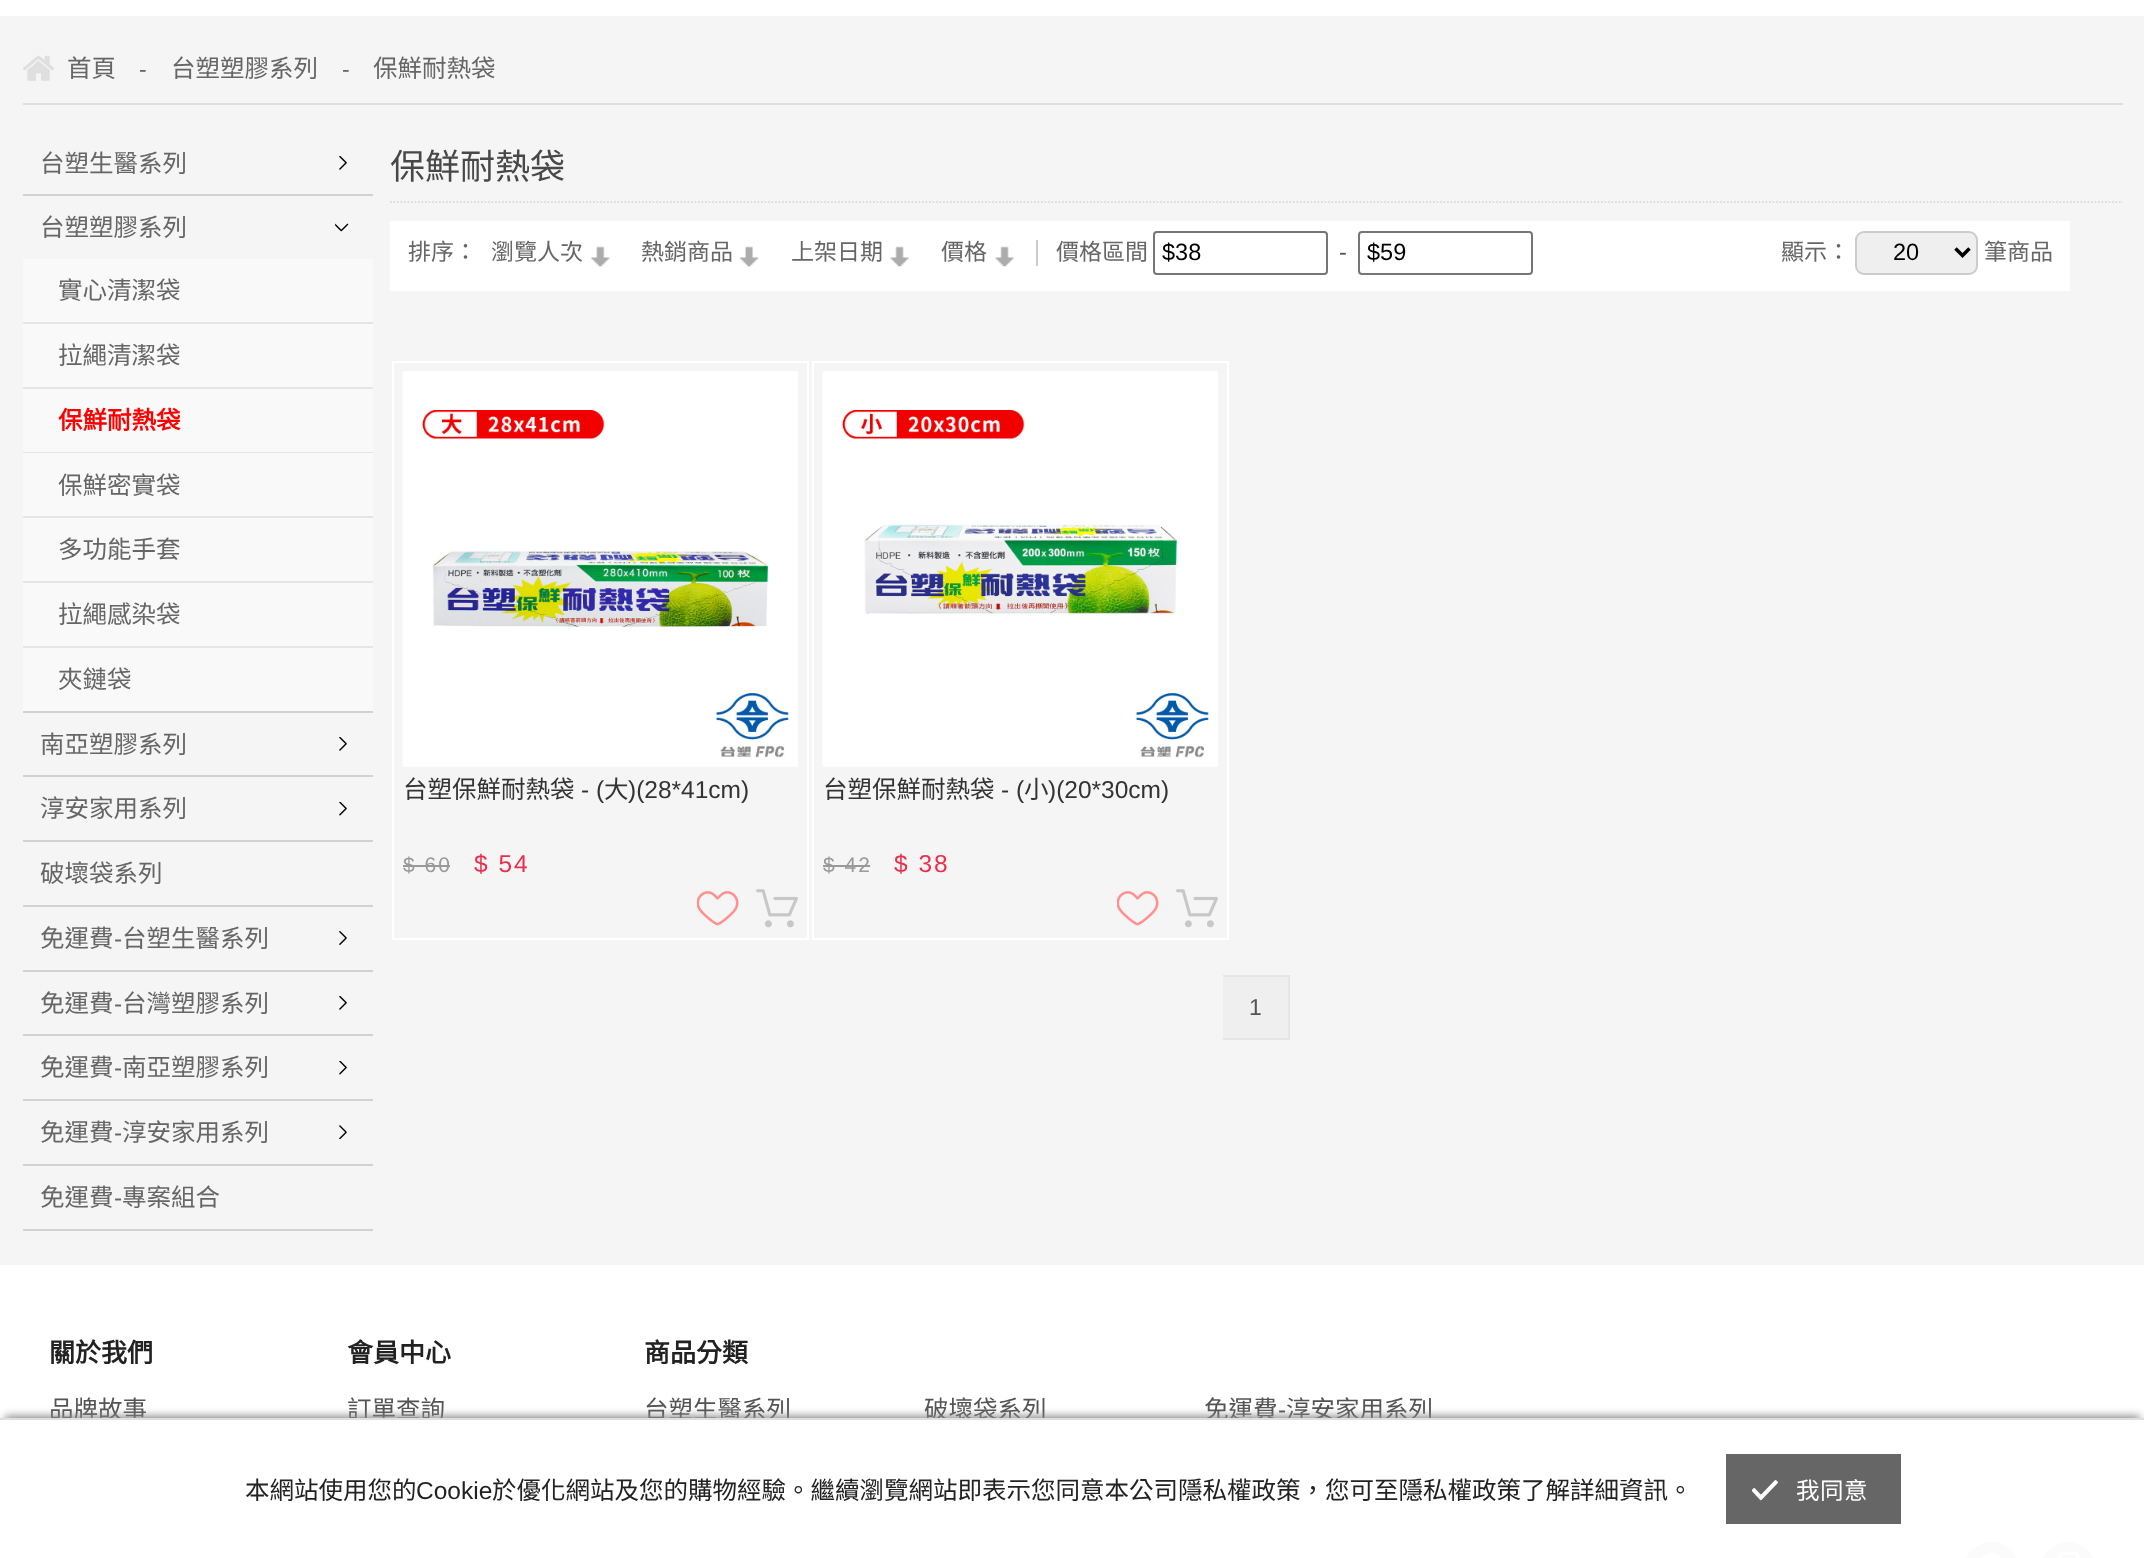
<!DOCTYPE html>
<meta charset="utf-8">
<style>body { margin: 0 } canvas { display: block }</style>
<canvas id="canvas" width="2144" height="1558"></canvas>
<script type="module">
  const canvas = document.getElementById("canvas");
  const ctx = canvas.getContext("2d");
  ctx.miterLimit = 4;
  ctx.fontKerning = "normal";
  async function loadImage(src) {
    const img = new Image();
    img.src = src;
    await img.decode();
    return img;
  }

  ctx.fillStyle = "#f5f5f5";
  ctx.fillRect(0, 0, 2144, 1558);
  ctx.fillStyle = "#ffffff";
  ctx.fillRect(0, 0, 2144, 16);
  ctx.fillStyle = "#dfdfdf";
  ctx.fillRect(23, 103, 2100, 2);
  ctx.drawImage(await loadImage("img1.png"), 23, 55, 31, 26);
  ctx.font = "24.5px Noto Sans CJK TC";
  ctx.fillStyle = "#666666";
  ctx.fillText("首頁", 67, 77);
  ctx.font = "23px Liberation Sans";
  ctx.fillText("-", 139, 77);
  ctx.font = "24.5px Noto Sans CJK TC";
  ctx.fillText("台塑塑膠系列", 171, 77);
  ctx.font = "23px Liberation Sans";
  ctx.fillText("-", 342, 77);
  ctx.font = "24.5px Noto Sans CJK TC";
  ctx.fillText("保鮮耐熱袋", 373, 77);
  ctx.fillStyle = "#d2d2d2";
  ctx.fillRect(23, 194, 350, 2);
  ctx.fillStyle = "#666666";
  ctx.fillText("台塑生醫系列", 40, 172);
  ctx.drawImage(await loadImage("img2.png"), 339, 156, 8, 14);
  ctx.fillStyle = "#d2d2d2";
  ctx.fillRect(23, 711, 350, 2);
  ctx.fillStyle = "#666666";
  ctx.fillText("台塑塑膠系列", 40, 236);
  ctx.drawImage(await loadImage("img3.png"), 335, 223, 14, 9);
  ctx.fillStyle = "#f9f9f9";
  ctx.fillRect(23, 259, 350, 63);
  ctx.fillStyle = "#e5e5e5";
  ctx.fillRect(23, 322, 350, 2);
  ctx.fillStyle = "#666666";
  ctx.fillText("實心清潔袋", 58, 299);
  ctx.fillStyle = "#f9f9f9";
  ctx.fillRect(23, 324, 350, 63);
  ctx.fillStyle = "#e5e5e5";
  ctx.fillRect(23, 387, 350, 2);
  ctx.fillStyle = "#666666";
  ctx.fillText("拉繩清潔袋", 58, 364);
  ctx.fillStyle = "#f9f9f9";
  ctx.fillRect(23, 389, 350, 63);
  ctx.fillStyle = "#e5e5e5";
  ctx.fillRect(23, 452, 350, 1);
  ctx.font = "bold 24.5px Noto Sans CJK TC";
  ctx.fillStyle = "#ff0000";
  ctx.fillText("保鮮耐熱袋", 58, 429);
  ctx.fillStyle = "#f9f9f9";
  ctx.fillRect(23, 453, 350, 63);
  ctx.fillStyle = "#e5e5e5";
  ctx.fillRect(23, 516, 350, 2);
  ctx.font = "24.5px Noto Sans CJK TC";
  ctx.fillStyle = "#666666";
  ctx.fillText("保鮮密實袋", 58, 494);
  ctx.fillStyle = "#f9f9f9";
  ctx.fillRect(23, 518, 350, 63);
  ctx.fillStyle = "#e5e5e5";
  ctx.fillRect(23, 581, 350, 2);
  ctx.fillStyle = "#666666";
  ctx.fillText("多功能手套", 58, 558);
  ctx.fillStyle = "#f9f9f9";
  ctx.fillRect(23, 583, 350, 63);
  ctx.fillStyle = "#e5e5e5";
  ctx.fillRect(23, 646, 350, 2);
  ctx.fillStyle = "#666666";
  ctx.fillText("拉繩感染袋", 58, 623);
  ctx.fillStyle = "#f9f9f9";
  ctx.fillRect(23, 648, 350, 63);
  ctx.fillStyle = "#666666";
  ctx.fillText("夾鏈袋", 58, 688);
  ctx.fillStyle = "#d2d2d2";
  ctx.fillRect(23, 775, 350, 2);
  ctx.fillStyle = "#666666";
  ctx.fillText("南亞塑膠系列", 40, 753);
  ctx.drawImage(await loadImage("img2.png"), 339, 737, 8, 14);
  ctx.fillStyle = "#d2d2d2";
  ctx.fillRect(23, 840, 350, 2);
  ctx.fillStyle = "#666666";
  ctx.fillText("淳安家用系列", 40, 817);
  ctx.drawImage(await loadImage("img4.png"), 339, 802, 8, 14);
  ctx.fillStyle = "#d2d2d2";
  ctx.fillRect(23, 905, 350, 2);
  ctx.fillStyle = "#666666";
  ctx.fillText("破壞袋系列", 40, 882);
  ctx.fillStyle = "#d2d2d2";
  ctx.fillRect(23, 970, 350, 2);
  ctx.fillStyle = "#666666";
  ctx.fillText("免運費", 40, 947);
  ctx.font = "24.5px Liberation Sans";
  ctx.fillText("-", 114, 947);
  ctx.font = "24.5px Noto Sans CJK TC";
  ctx.fillText("台塑生醫系列", 122, 947);
  ctx.drawImage(await loadImage("img5.png"), 339, 931, 8, 14);
  ctx.fillStyle = "#d2d2d2";
  ctx.fillRect(23, 1034, 350, 2);
  ctx.fillStyle = "#666666";
  ctx.fillText("免運費", 40, 1012);
  ctx.font = "24.5px Liberation Sans";
  ctx.fillText("-", 114, 1012);
  ctx.font = "24.5px Noto Sans CJK TC";
  ctx.fillText("台灣塑膠系列", 122, 1012);
  ctx.drawImage(await loadImage("img2.png"), 339, 996, 8, 14);
  ctx.fillStyle = "#d2d2d2";
  ctx.fillRect(23, 1099, 350, 2);
  ctx.fillStyle = "#666666";
  ctx.fillText("免運費", 40, 1076);
  ctx.font = "24.5px Liberation Sans";
  ctx.fillText("-", 114, 1076);
  ctx.font = "24.5px Noto Sans CJK TC";
  ctx.fillText("南亞塑膠系列", 122, 1076);
  ctx.drawImage(await loadImage("img4.png"), 339, 1061, 8, 14);
  ctx.fillStyle = "#d2d2d2";
  ctx.fillRect(23, 1164, 350, 2);
  ctx.fillStyle = "#666666";
  ctx.fillText("免運費", 40, 1141);
  ctx.font = "24.5px Liberation Sans";
  ctx.fillText("-", 114, 1141);
  ctx.font = "24.5px Noto Sans CJK TC";
  ctx.fillText("淳安家用系列", 122, 1141);
  ctx.drawImage(await loadImage("img6.png"), 339, 1125, 8, 14);
  ctx.fillStyle = "#d2d2d2";
  ctx.fillRect(23, 1229, 350, 2);
  ctx.fillStyle = "#666666";
  ctx.fillText("免運費", 40, 1206);
  ctx.font = "24.5px Liberation Sans";
  ctx.fillText("-", 114, 1206);
  ctx.font = "24.5px Noto Sans CJK TC";
  ctx.fillText("專案組合", 122, 1206);
  ctx.beginPath();
  ctx.moveTo(390, 202);
  ctx.lineTo(2123, 202);
  ctx.strokeStyle = "#dddddd";
  ctx.lineWidth = 1.8;
  ctx.setLineDash([1.75, 1.75]);
  ctx.stroke();
  ctx.font = "35px Noto Sans CJK TC";
  ctx.fillStyle = "#484848";
  ctx.fillText("保鮮耐熱袋", 390, 179);
  ctx.fillStyle = "#ffffff";
  ctx.fillRect(390, 221, 1680, 70);
  ctx.font = "23px Noto Sans CJK TC";
  ctx.fillStyle = "#666666";
  ctx.fillText("排序：", 408, 260);
  ctx.fillText("瀏覽人次", 491, 260);
  ctx.drawImage(await loadImage("img7.png"), 591, 246, 19, 21);
  ctx.fillText("熱銷商品", 641, 260);
  ctx.drawImage(await loadImage("img8.png"), 739, 246, 20, 21);
  ctx.fillText("上架日期", 791, 260);
  ctx.drawImage(await loadImage("img9.png"), 890, 246, 19, 21);
  ctx.fillText("價格", 941, 260);
  ctx.drawImage(await loadImage("img10.png"), 995, 246, 19, 21);
  ctx.fillText("價格區間", 1056, 260);
  ctx.fillStyle = "#cccccc";
  ctx.fillRect(1036, 240, 2, 26);
  ctx.beginPath();
  ctx.roundRect(1154, 232, 173, 42, 3);
  ctx.strokeStyle = "#767676";
  ctx.lineWidth = 2;
  ctx.setLineDash([]);
  ctx.stroke();
  ctx.font = "23.5px Liberation Sans";
  ctx.fillStyle = "#000000";
  ctx.fillText("$38", 1162, 260);
  ctx.fillStyle = "#545454";
  ctx.fillText("-", 1339, 260);
  ctx.beginPath();
  ctx.roundRect(1359, 232, 173, 42, 3);
  ctx.stroke();
  ctx.fillStyle = "#000000";
  ctx.fillText("$59", 1367, 260);
  ctx.font = "23px Noto Sans CJK TC";
  ctx.fillStyle = "#666666";
  ctx.fillText("顯示：", 1781, 260);
  ctx.fillStyle = "#efefef";
  ctx.beginPath();
  ctx.roundRect(1856, 232, 121, 42, 8);
  ctx.fill();
  ctx.strokeStyle = "#cccccc";
  ctx.stroke();
  ctx.beginPath();
  ctx.moveTo(1955.5, 248.5);
  ctx.lineTo(1962.5, 255.5);
  ctx.lineTo(1969.5, 248.5);
  ctx.strokeStyle = "#000000";
  ctx.lineWidth = 3.5;
  ctx.stroke();
  ctx.font = "23.5px Liberation Sans";
  ctx.fillStyle = "#000000";
  ctx.fillText("20", 1893, 260);
  ctx.font = "23px Noto Sans CJK TC";
  ctx.fillStyle = "#666666";
  ctx.fillText("筆商品", 1984, 260);
  ctx.strokeStyle = "#ffffff";
  ctx.lineWidth = 2;
  ctx.strokeRect(393, 362, 415, 577);
  ctx.drawImage(await loadImage("img11.png"), 402, 371, 396, 396);
  ctx.font = "24.5px Noto Sans CJK TC";
  ctx.fillStyle = "#333333";
  ctx.fillText("台塑保鮮耐熱袋", 403, 798);
  ctx.font = "24.5px Liberation Sans";
  ctx.fillText("- (", 581, 798);
  ctx.font = "24.5px Noto Sans CJK TC";
  ctx.fillText("大", 604, 798);
  ctx.font = "24.5px Liberation Sans";
  ctx.fillText(")(28*41cm)", 628, 798);
  ctx.letterSpacing = "2px";
  ctx.font = "21px Liberation Sans";
  ctx.fillStyle = "#999999";
  ctx.fillText("$ 60", 403, 872);
  ctx.fillRect(403, 865, 47, 2);
  ctx.font = "24.5px Liberation Sans";
  ctx.fillStyle = "#ed2d4c";
  ctx.fillText("$ 54", 474, 872);
  ctx.drawImage(await loadImage("img12.png"), 697, 891, 42, 35);
  ctx.drawImage(await loadImage("img13.png"), 756, 889, 42, 39);
  ctx.strokeRect(813, 362, 415, 577);
  ctx.drawImage(await loadImage("img14.png"), 822, 371, 396, 396);
  ctx.letterSpacing = "0px";
  ctx.font = "24.5px Noto Sans CJK TC";
  ctx.fillStyle = "#333333";
  ctx.fillText("台塑保鮮耐熱袋", 823, 798);
  ctx.font = "24.5px Liberation Sans";
  ctx.fillText("- (", 1001, 798);
  ctx.font = "24.5px Noto Sans CJK TC";
  ctx.fillText("小", 1024, 798);
  ctx.font = "24.5px Liberation Sans";
  ctx.fillText(")(20*30cm)", 1048, 798);
  ctx.letterSpacing = "2px";
  ctx.font = "21px Liberation Sans";
  ctx.fillStyle = "#999999";
  ctx.fillText("$ 42", 823, 872);
  ctx.fillRect(823, 865, 47, 2);
  ctx.font = "24.5px Liberation Sans";
  ctx.fillStyle = "#ed2d4c";
  ctx.fillText("$ 38", 894, 872);
  ctx.drawImage(await loadImage("img12.png"), 1117, 891, 42, 35);
  ctx.drawImage(await loadImage("img13.png"), 1176, 889, 42, 39);
  ctx.fillStyle = "#efefef";
  ctx.fillRect(1223, 977, 65, 61);
  ctx.fillStyle = "#e5e5e5";
  ctx.fillRect(1223, 975, 67, 2);
  ctx.fillRect(1288, 975, 2, 65);
  ctx.fillRect(1223, 1038, 67, 2);
  ctx.letterSpacing = "0px";
  ctx.font = "23px Liberation Sans";
  ctx.fillStyle = "#545454";
  ctx.fillText("1", 1249, 1015);
  ctx.fillStyle = "#ffffff";
  ctx.fillRect(0, 1265, 2144, 293);
  ctx.font = "bold 26px Noto Sans CJK TC";
  ctx.fillStyle = "#222222";
  ctx.fillText("關於我們", 49, 1362);
  ctx.font = "24.5px Noto Sans CJK TC";
  ctx.fillStyle = "#545454";
  ctx.fillText("品牌故事", 49, 1418);
  ctx.font = "bold 26px Noto Sans CJK TC";
  ctx.fillStyle = "#222222";
  ctx.fillText("會員中心", 347, 1362);
  ctx.font = "24.5px Noto Sans CJK TC";
  ctx.fillStyle = "#545454";
  ctx.fillText("訂單查詢", 347, 1418);
  ctx.font = "bold 26px Noto Sans CJK TC";
  ctx.fillStyle = "#222222";
  ctx.fillText("商品分類", 644, 1362);
  ctx.font = "24.5px Noto Sans CJK TC";
  ctx.fillStyle = "#545454";
  ctx.fillText("台塑生醫系列", 644, 1418);
  ctx.fillText("破壞袋系列", 924, 1418);
  ctx.fillText("免運費", 1204, 1418);
  ctx.font = "24.5px Liberation Sans";
  ctx.fillText("-", 1278, 1418);
  ctx.font = "24.5px Noto Sans CJK TC";
  ctx.fillText("淳安家用系列", 1286, 1418);
  ctx.drawImage(await loadImage("img15.png"), 1966, 1542, 51, 16);
  ctx.drawImage(await loadImage("img16.png"), 2043, 1542, 51, 16);
  ctx.save();
  ctx.beginPath();
  ctx.rect(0, 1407, 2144, 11);
  ctx.clip();
  ctx.fillStyle = "#8a8a8a";
  ctx.filter = "blur(4.5px)";
  ctx.beginPath();
  ctx.rect(5, 1416, 2135, 131);
  ctx.fill();
  ctx.filter = "none";
  ctx.restore();
  ctx.fillStyle = "rgba(255, 255, 255, 0.95)";
  ctx.fillRect(1966, 1542, 128, 16);
  ctx.fillStyle = "#dfdfdf";
  ctx.fillRect(0, 1418, 2144, 2);
  ctx.fillStyle = "#222222";
  ctx.fillText("本網站使用您的", 245, 1499);
  ctx.font = "24.5px Liberation Sans";
  ctx.fillText("Cookie", 416, 1499);
  ctx.font = "24.5px Noto Sans CJK TC";
  ctx.fillText("於優化網站及您的購物經驗。繼續瀏覽網站即表示您同意本公司隱私權政策，您可至隱私權政策了解詳細資訊。", 492, 1499);
  ctx.fillStyle = "#666666";
  ctx.fillRect(1726, 1454, 175, 70);
  ctx.drawImage(await loadImage("img17.png"), 1752, 1480, 26, 21);
  ctx.letterSpacing = "0.5px";
  ctx.font = "23.5px Noto Sans CJK TC";
  ctx.fillStyle = "#ffffff";
  ctx.fillText("我同意", 1796, 1499);
</script>
